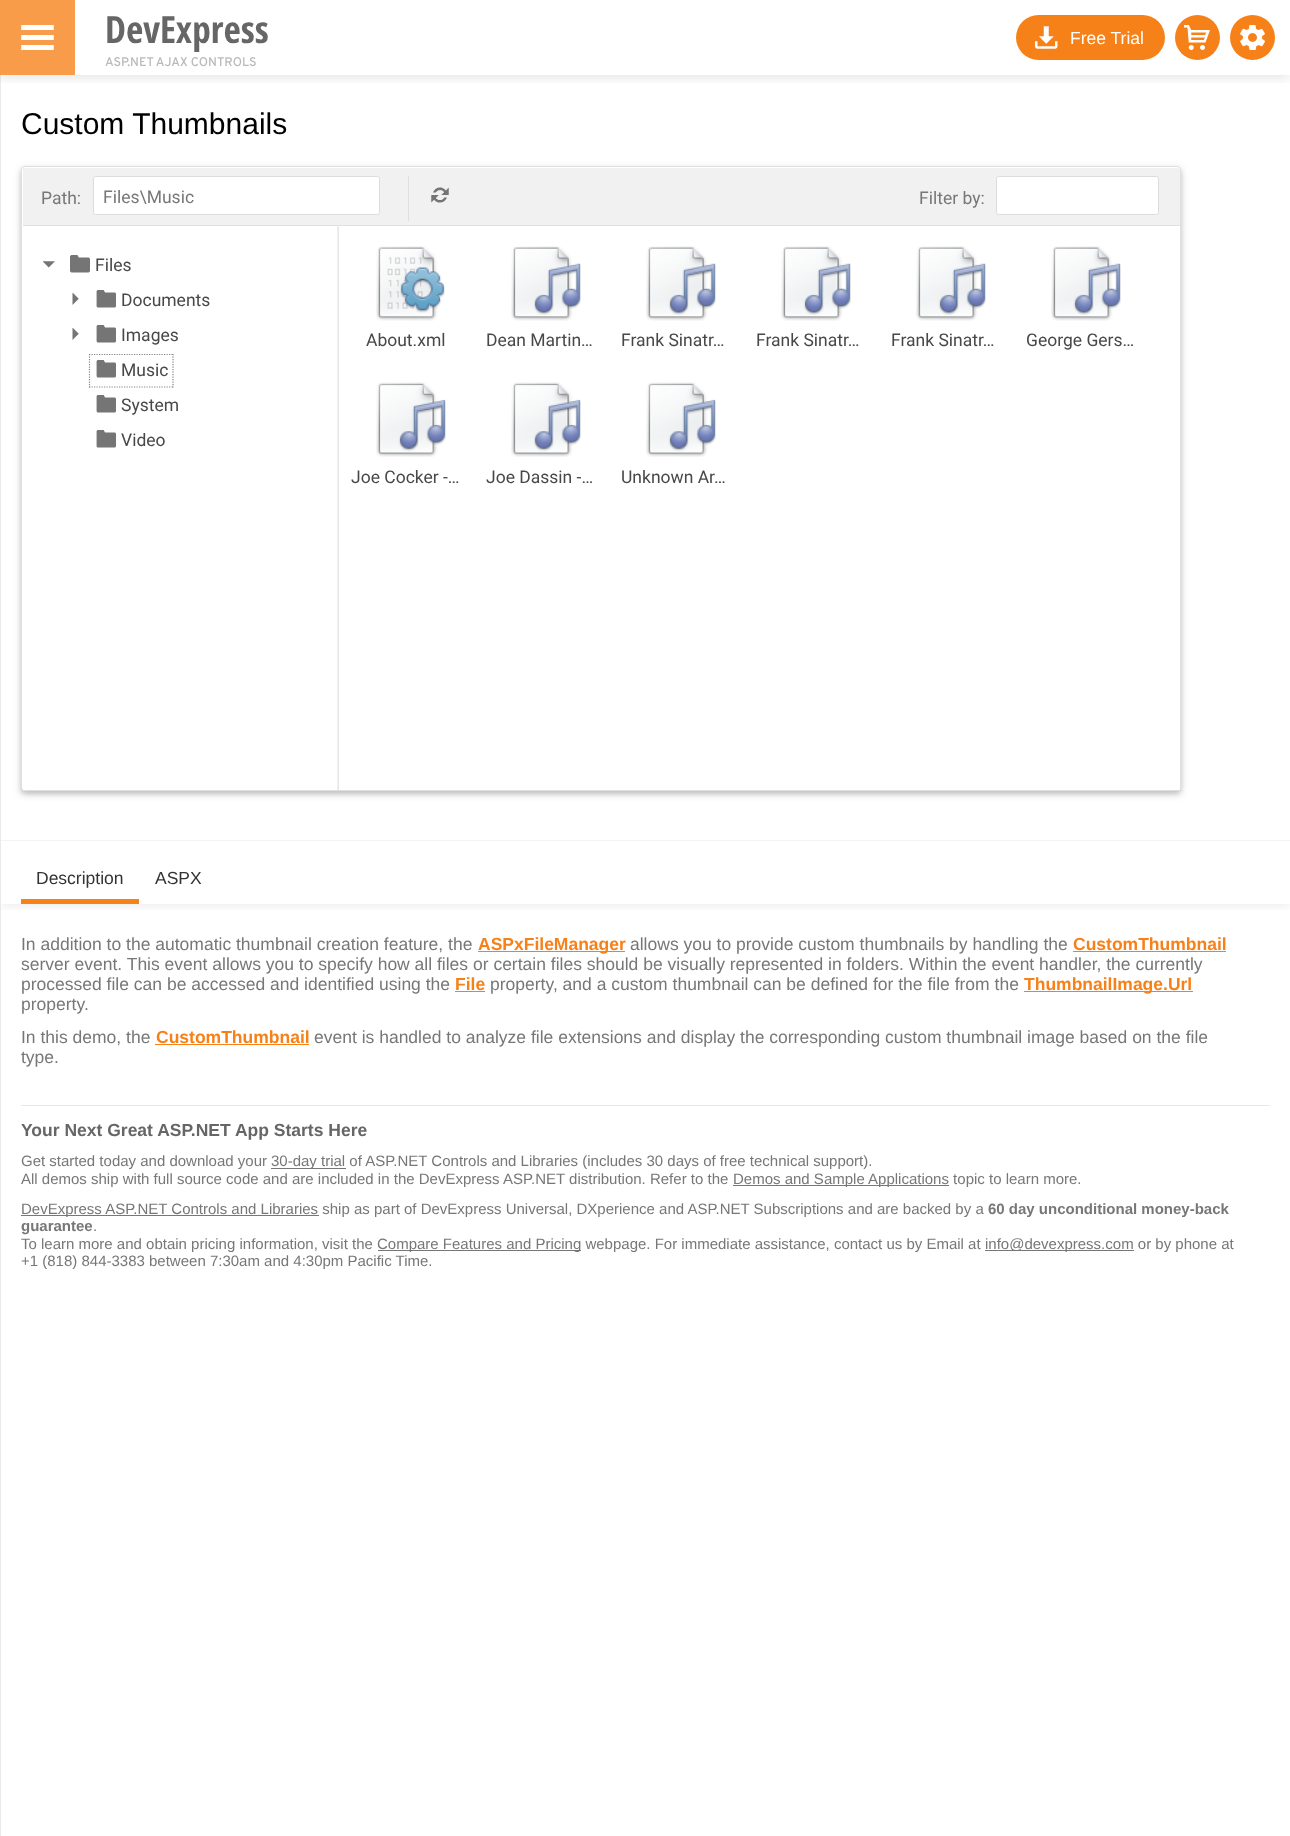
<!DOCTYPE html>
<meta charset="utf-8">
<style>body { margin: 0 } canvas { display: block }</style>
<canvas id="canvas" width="1290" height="1836"></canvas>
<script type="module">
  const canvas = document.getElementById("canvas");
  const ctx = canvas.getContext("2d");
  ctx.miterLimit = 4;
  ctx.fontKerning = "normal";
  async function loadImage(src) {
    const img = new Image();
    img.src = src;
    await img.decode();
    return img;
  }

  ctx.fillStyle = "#ffffff";
  ctx.fillRect(0, 0, 1290, 1836);
  ctx.fillStyle = "#f4f4f4";
  ctx.fillRect(1, 840, 1289, 1);
  ctx.save();
  ctx.beginPath();
  ctx.rect(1, 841, 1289, 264);
  ctx.clip();
  ctx.beginPath();
  ctx.rect(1, 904, 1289, 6);
  ctx.clip();
  ctx.fillStyle = "rgba(0, 0, 0, 0.08)";
  ctx.filter = "blur(6px)";
  ctx.beginPath();
  ctx.rect(1, 844, 1289, 62);
  ctx.fill();
  ctx.filter = "none";
  ctx.restore();
  ctx.fillStyle = "#eae9e9";
  ctx.fillRect(0, 75, 1, 1761);
  ctx.save();
  ctx.beginPath();
  ctx.rect(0, 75, 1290, 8);
  ctx.clip();
  ctx.fillStyle = "rgba(0, 0, 0, 0.1)";
  ctx.filter = "blur(6px)";
  ctx.beginPath();
  ctx.rect(0, 3, 1290, 75);
  ctx.fill();
  ctx.filter = "none";
  ctx.restore();
  ctx.fillStyle = "#f99c4a";
  ctx.fillRect(0, 0, 75, 75);
  ctx.drawImage(await loadImage("img1.png"), 21, 25, 33, 25);
  ctx.font = "bold 37.5px Open Sans Condensed";
  ctx.fillStyle = "#666666";
  ctx.fillText("DevExpress", 105, 43);
  ctx.font = "600 12.5px Overpass";
  ctx.fillStyle = "#bababa";
  ctx.fillText("ASP.NET AJAX CONTROLS", 105, 66);
  ctx.fillStyle = "#f78119";
  ctx.beginPath();
  ctx.roundRect(1016, 15, 149, 45, 22.5);
  ctx.fill();
  ctx.drawImage(await loadImage("img2.png"), 1035, 26, 23, 23);
  ctx.font = "17.5px Liberation Sans";
  ctx.fillStyle = "#ffffff";
  ctx.fillText("Free Trial", 1070, 44);
  ctx.fillStyle = "#f78119";
  ctx.beginPath();
  ctx.arc(1197.5, 37.5, 22.5, 0, Math.PI * 2);
  ctx.fill();
  ctx.drawImage(await loadImage("img3.png"), 1184, 25, 26, 25);
  ctx.beginPath();
  ctx.arc(1252.5, 37.5, 22.5, 0, Math.PI * 2);
  ctx.fill();
  ctx.drawImage(await loadImage("img4.png"), 1240, 25, 25, 25);
  ctx.font = "30px Liberation Sans";
  ctx.fillStyle = "#000000";
  ctx.fillText("Custom Thumbnails", 21, 134);
  ctx.fillStyle = "rgba(0, 0, 0, 0.12)";
  ctx.filter = "blur(5px)";
  ctx.beginPath();
  ctx.roundRect(21, 169, 1160, 625, 4);
  ctx.fill();
  ctx.filter = "none";
  ctx.fillStyle = "rgba(0, 0, 0, 0.16)";
  ctx.filter = "blur(2.5px)";
  ctx.beginPath();
  ctx.roundRect(21, 169, 1160, 625, 4);
  ctx.fill();
  ctx.filter = "none";
  ctx.fillStyle = "#ffffff";
  ctx.beginPath();
  ctx.roundRect(21.5, 166.5, 1159, 624, 3.5);
  ctx.fill();
  ctx.strokeStyle = "#dfdfdf";
  ctx.stroke();
  ctx.fillStyle = "#f1f1f1";
  ctx.fillRect(23, 168, 1157, 57);
  ctx.font = "17.5px Roboto";
  ctx.fillStyle = "#777777";
  ctx.fillText("Path:", 41, 204);
  ctx.fillStyle = "#ffffff";
  ctx.beginPath();
  ctx.roundRect(93.5, 176.5, 286, 38, 2);
  ctx.fill();
  ctx.strokeStyle = "#dcdcdc";
  ctx.stroke();
  ctx.fillStyle = "#777777";
  ctx.fillText("Files\\Music", 103, 203);
  ctx.fillStyle = "#dfdfdf";
  ctx.fillRect(408, 176, 1, 45);
  ctx.drawImage(await loadImage("img5.png"), 431, 187, 18, 16);
  ctx.fillStyle = "#777777";
  ctx.fillText("Filter by:", 919, 204);
  ctx.fillStyle = "#ffffff";
  ctx.beginPath();
  ctx.roundRect(996.5, 176.5, 162, 38, 2);
  ctx.fill();
  ctx.stroke();
  ctx.fillStyle = "#e0e0e0";
  ctx.fillRect(23, 225, 1157, 1);
  ctx.fillStyle = "#ffffff";
  ctx.fillRect(23, 789, 2, 1);
  ctx.drawImage(await loadImage("img6.png"), 43, 261, 12, 7);
  ctx.drawImage(await loadImage("img7.png"), 70, 255, 20, 18);
  ctx.fillStyle = "#484848";
  ctx.fillText("Files", 95, 271);
  ctx.drawImage(await loadImage("img8.png"), 72, 293, 7, 12);
  ctx.drawImage(await loadImage("img9.png"), 96, 290, 20, 18);
  ctx.fillText("Documents", 121, 306);
  ctx.drawImage(await loadImage("img8.png"), 72, 328, 7, 12);
  ctx.drawImage(await loadImage("img9.png"), 96, 325, 20, 18);
  ctx.fillText("Images", 121, 341);
  ctx.beginPath();
  ctx.moveTo(89, 354.5);
  ctx.lineTo(174, 354.5);
  ctx.strokeStyle = "#888888";
  ctx.lineWidth = 1.2;
  ctx.setLineDash([1.25, 1.25]);
  ctx.stroke();
  ctx.beginPath();
  ctx.moveTo(173, 354);
  ctx.lineTo(173, 387.5);
  ctx.stroke();
  ctx.beginPath();
  ctx.moveTo(89, 387);
  ctx.lineTo(174, 387);
  ctx.stroke();
  ctx.beginPath();
  ctx.moveTo(89.5, 354);
  ctx.lineTo(89.5, 387.5);
  ctx.stroke();
  ctx.drawImage(await loadImage("img9.png"), 96, 360, 20, 18);
  ctx.fillText("Music", 121, 376);
  ctx.drawImage(await loadImage("img9.png"), 96, 395, 20, 18);
  ctx.fillText("System", 121, 411);
  ctx.drawImage(await loadImage("img9.png"), 96, 430, 20, 18);
  ctx.fillText("Video", 121, 446);
  ctx.drawImage(await loadImage("img10.png"), 337, 226, 2, 564);
  ctx.fillStyle = "#ffffff";
  ctx.fillRect(1177, 787, 3, 3);
  ctx.drawImage(await loadImage("img11.png"), 376, 246, 69, 75);
  ctx.fillStyle = "#484848";
  ctx.fillText("About.xml", 366, 346);
  ctx.drawImage(await loadImage("img12.png"), 511, 246, 70, 75);
  ctx.fillText("Dean Martin…", 486, 346);
  ctx.drawImage(await loadImage("img12.png"), 646, 246, 70, 75);
  ctx.fillText("Frank Sinatr…", 621, 346);
  ctx.drawImage(await loadImage("img12.png"), 781, 246, 70, 75);
  ctx.fillText("Frank Sinatr…", 756, 346);
  ctx.drawImage(await loadImage("img12.png"), 916, 246, 70, 75);
  ctx.fillText("Frank Sinatr…", 891, 346);
  ctx.drawImage(await loadImage("img13.png"), 1051, 246, 70, 75);
  ctx.fillText("George Gers…", 1026, 346);
  ctx.drawImage(await loadImage("img14.png"), 376, 382, 70, 75);
  ctx.fillText("Joe Cocker -…", 351, 483);
  ctx.drawImage(await loadImage("img15.png"), 511, 382, 70, 75);
  ctx.fillText("Joe Dassin -…", 486, 483);
  ctx.drawImage(await loadImage("img15.png"), 646, 382, 70, 75);
  ctx.fillText("Unknown Ar…", 621, 483);
  ctx.fillStyle = "#f78119";
  ctx.fillRect(21, 899, 118, 5);
  ctx.font = "17.5px Liberation Sans";
  ctx.fillStyle = "#333333";
  ctx.fillText("Description", 36, 884);
  ctx.fillStyle = "#ffffff";
  ctx.fillRect(140, 903, 76, 1);
  ctx.fillStyle = "#333333";
  ctx.fillText("ASPX", 155, 884);
  ctx.fillStyle = "#777777";
  ctx.fillText("In addition to the automatic thumbnail creation feature, the", 21, 950);
  ctx.fillStyle = "#f78119";
  ctx.fillRect(478, 951, 147, 1);
  ctx.font = "bold 17.5px Liberation Sans";
  ctx.fillText("ASPxFileManager", 478, 950);
  ctx.font = "17.5px Liberation Sans";
  ctx.fillStyle = "#777777";
  ctx.fillText("allows you to provide custom thumbnails by handling the", 630, 950);
  ctx.font = "bold 17.5px Liberation Sans";
  ctx.fillStyle = "#f78119";
  ctx.fillText("CustomThumbnail", 1073, 950);
  ctx.fillRect(1073, 951, 153, 1);
  ctx.font = "17.5px Liberation Sans";
  ctx.fillStyle = "#777777";
  ctx.fillText("server event. This event allows you to specify how all files or certain files should be visually represented in folders. Within the event handler, the currently", 21, 970);
  ctx.fillText("processed file can be accessed and identified using the", 21, 990);
  ctx.font = "bold 17.5px Liberation Sans";
  ctx.fillStyle = "#f78119";
  ctx.fillText("File", 455, 990);
  ctx.fillRect(455, 991, 30, 1);
  ctx.font = "17.5px Liberation Sans";
  ctx.fillStyle = "#777777";
  ctx.fillText("property, and a custom thumbnail can be defined for the file from the", 490, 990);
  ctx.fillStyle = "#f78119";
  ctx.fillRect(1024, 991, 169, 1);
  ctx.font = "bold 17.5px Liberation Sans";
  ctx.fillText("ThumbnailImage.Url", 1024, 990);
  ctx.font = "17.5px Liberation Sans";
  ctx.fillStyle = "#777777";
  ctx.fillText("property.", 21, 1010);
  ctx.fillText("In this demo, the", 21, 1043);
  ctx.font = "bold 17.5px Liberation Sans";
  ctx.fillStyle = "#f78119";
  ctx.fillText("CustomThumbnail", 156, 1043);
  ctx.fillRect(155, 1044, 154, 1);
  ctx.font = "17.5px Liberation Sans";
  ctx.fillStyle = "#777777";
  ctx.fillText("event is handled to analyze file extensions and display the corresponding custom thumbnail image based on the file", 314, 1043);
  ctx.fillText("type.", 21, 1063);
  ctx.fillStyle = "#e8e8e8";
  ctx.fillRect(21, 1105, 1249, 1);
  ctx.font = "bold 17.5px Liberation Sans";
  ctx.fillStyle = "#666666";
  ctx.fillText("Your Next Great ASP.NET App Starts Here", 21, 1136);
  ctx.font = "15px Liberation Sans";
  ctx.fillStyle = "#777777";
  ctx.fillText("Get started today and download your", 21, 1166);
  ctx.fillRect(271, 1168, 75, 1);
  ctx.fillText("30-day trial of ASP.NET Controls and Libraries (includes 30 days of free technical support).", 271, 1166);
  ctx.fillText("All demos ship with full source code and are included in the DevExpress ASP.NET distribution. Refer to the", 21, 1184);
  ctx.fillRect(733, 1185, 216, 1);
  ctx.fillText("Demos and Sample Applications topic to learn more.", 733, 1184);
  ctx.fillRect(21, 1215, 298, 1);
  ctx.fillText("DevExpress ASP.NET Controls and Libraries ship as part of DevExpress Universal, DXperience and ASP.NET Subscriptions and are backed by a", 21, 1214);
  ctx.font = "bold 15px Liberation Sans";
  ctx.fillText("60 day unconditional money-back", 988, 1214);
  ctx.fillText("guarantee", 21, 1231);
  ctx.font = "15px Liberation Sans";
  ctx.fillText(".", 93, 1231);
  ctx.fillText("To learn more and obtain pricing information, visit the", 21, 1249);
  ctx.fillRect(378, 1250, 203, 1);
  ctx.fillText("Compare Features and Pricing webpage. For immediate assistance, contact us by Email at", 377, 1249);
  ctx.fillRect(985, 1250, 149, 1);
  ctx.fillText("info@devexpress.com or by phone at", 985, 1249);
  ctx.fillText("+1 (818) 844-3383 between 7:30am and 4:30pm Pacific Time.", 21, 1266);
</script>
